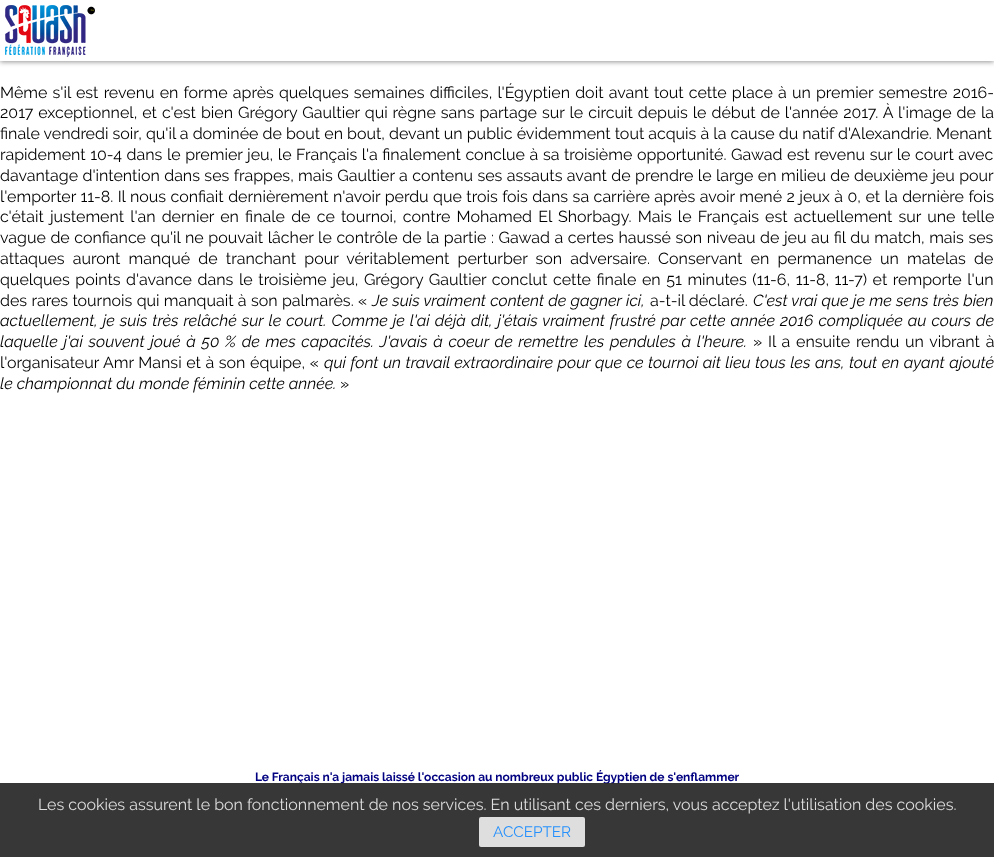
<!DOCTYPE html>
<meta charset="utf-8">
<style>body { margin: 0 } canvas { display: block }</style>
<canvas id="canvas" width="994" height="857"></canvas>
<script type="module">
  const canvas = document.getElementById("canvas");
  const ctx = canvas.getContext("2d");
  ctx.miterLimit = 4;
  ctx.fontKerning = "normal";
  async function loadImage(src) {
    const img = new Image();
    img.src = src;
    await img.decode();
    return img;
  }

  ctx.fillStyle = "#ffffff";
  ctx.fillRect(0, 0, 994, 857);
  ctx.fillStyle = "#949494";
  ctx.filter = "blur(2.5px)";
  ctx.beginPath();
  ctx.rect(0, 1, 994, 61);
  ctx.fill();
  ctx.filter = "none";
  ctx.fillStyle = "#ffffff";
  ctx.fillRect(0, 0, 994, 61);
  ctx.drawImage(await loadImage("img1.png"), 5, 5, 90, 52);
  ctx.wordSpacing = "1.1px";
  ctx.font = "16px Raleway";
  ctx.fillStyle = "#000000";
  ctx.fillText("Même s'il est revenu en forme après quelques semaines difficiles, l'Égyptien doit avant tout cette place à un premier semestre 2016-", 0, 98);
  ctx.wordSpacing = "0.9px";
  ctx.fillText("2017 exceptionnel, et c'est bien Grégory Gaultier qui règne sans partage sur le circuit depuis le début de l'année 2017. À l'image de la", 0, 118);
  ctx.wordSpacing = "0px";
  ctx.fillText("finale vendredi soir, qu'il a dominée de bout en bout, devant un public évidemment tout acquis à la cause du natif d'Alexandrie. Menant", 0, 139);
  ctx.wordSpacing = "0.5px";
  ctx.fillText("rapidement 10-4 dans le premier jeu, le Français l'a finalement conclue à sa troisième opportunité. Gawad est revenu sur le court avec", 0, 160);
  ctx.wordSpacing = "0.3px";
  ctx.fillText("davantage d'intention dans ses frappes, mais Gaultier a contenu ses assauts avant de prendre le large en milieu de deuxième jeu pour", 0, 181);
  ctx.wordSpacing = "0.4px";
  ctx.fillText("l'emporter 11-8. Il nous confiait dernièrement n'avoir perdu que trois fois dans sa carrière après avoir mené 2 jeux à 0, et la dernière fois", 0, 202);
  ctx.wordSpacing = "2.1px";
  ctx.fillText("c'était justement l'an dernier en finale de ce tournoi, contre Mohamed El Shorbagy. Mais le Français est actuellement sur une telle", 0, 222);
  ctx.wordSpacing = "0.5px";
  ctx.fillText("vague de confiance qu'il ne pouvait lâcher le contrôle de la partie : Gawad a certes haussé son niveau de jeu au fil du match, mais ses", 0, 243);
  ctx.wordSpacing = "4.1px";
  ctx.fillText("attaques auront manqué de tranchant pour véritablement perturber son adversaire. Conservant en permanence un matelas de", 0, 264);
  ctx.wordSpacing = "1.5px";
  ctx.fillText("quelques points d'avance dans le troisième jeu, Grégory Gaultier conclut cette finale en 51 minutes (11-6, 11-8, 11-7) et remporte l'un", 0, 285);
  ctx.wordSpacing = "0.25px";
  ctx.fillText("des rares tournois qui manquait à son palmarès. «", 0, 306);
  ctx.font = "italic 16px Raleway";
  ctx.fillText("Je suis vraiment content de gagner ici,", 372, 306);
  ctx.wordSpacing = "0px";
  ctx.font = "16px Raleway";
  ctx.fillText("a-t-il déclaré.", 650, 306);
  ctx.wordSpacing = "0.25px";
  ctx.font = "italic 16px Raleway";
  ctx.fillText("C'est vrai que je me sens très bien", 753, 306);
  ctx.wordSpacing = "1px";
  ctx.fillText("actuellement, je suis très relâché sur le court. Comme je l'ai déjà dit, j'étais vraiment frustré par cette année 2016 compliquée au cours de", 0, 326);
  ctx.wordSpacing = "1.7px";
  ctx.fillText("laquelle j'ai souvent joué à 50 % de mes capacités. J'avais à coeur de remettre les pendules à l'heure.", 0, 347);
  ctx.font = "16px Raleway";
  ctx.fillText("» Il a ensuite rendu un vibrant à", 753, 347);
  ctx.wordSpacing = "0.5px";
  ctx.fillText("l'organisateur Amr Mansi et à son équipe, «", 0, 368);
  ctx.font = "italic 16px Raleway";
  ctx.fillText("qui font un travail extraordinaire pour que ce tournoi ait lieu tous les ans, tout en ayant ajouté", 324, 368);
  ctx.wordSpacing = "0px";
  ctx.fillText("le championnat du monde féminin cette année.", 0, 389);
  ctx.font = "16px Raleway";
  ctx.fillText("»", 340, 389);
  ctx.font = "bold 12px Raleway";
  ctx.fillStyle = "#000080";
  ctx.fillText("Le Français n'a jamais laissé l'occasion au nombreux public Égyptien de s'enflammer", 255, 781);
  ctx.fillStyle = "rgba(33, 33, 33, 0.9)";
  ctx.fillRect(0, 783, 994, 74);
  ctx.font = "16px Raleway";
  ctx.fillStyle = "#dedede";
  ctx.fillText("Les cookies assurent le bon fonctionnement de nos services. En utilisant ces derniers, vous acceptez l'utilisation des cookies.", 38, 810);
  ctx.fillStyle = "rgba(241, 241, 241, 0.9)";
  ctx.beginPath();
  ctx.roundRect(479, 817, 106, 30, 2);
  ctx.fill();
  ctx.font = "15.25px Raleway";
  ctx.fillStyle = "#2691fc";
  ctx.fillText("ACCEPTER", 493, 837);
</script>
